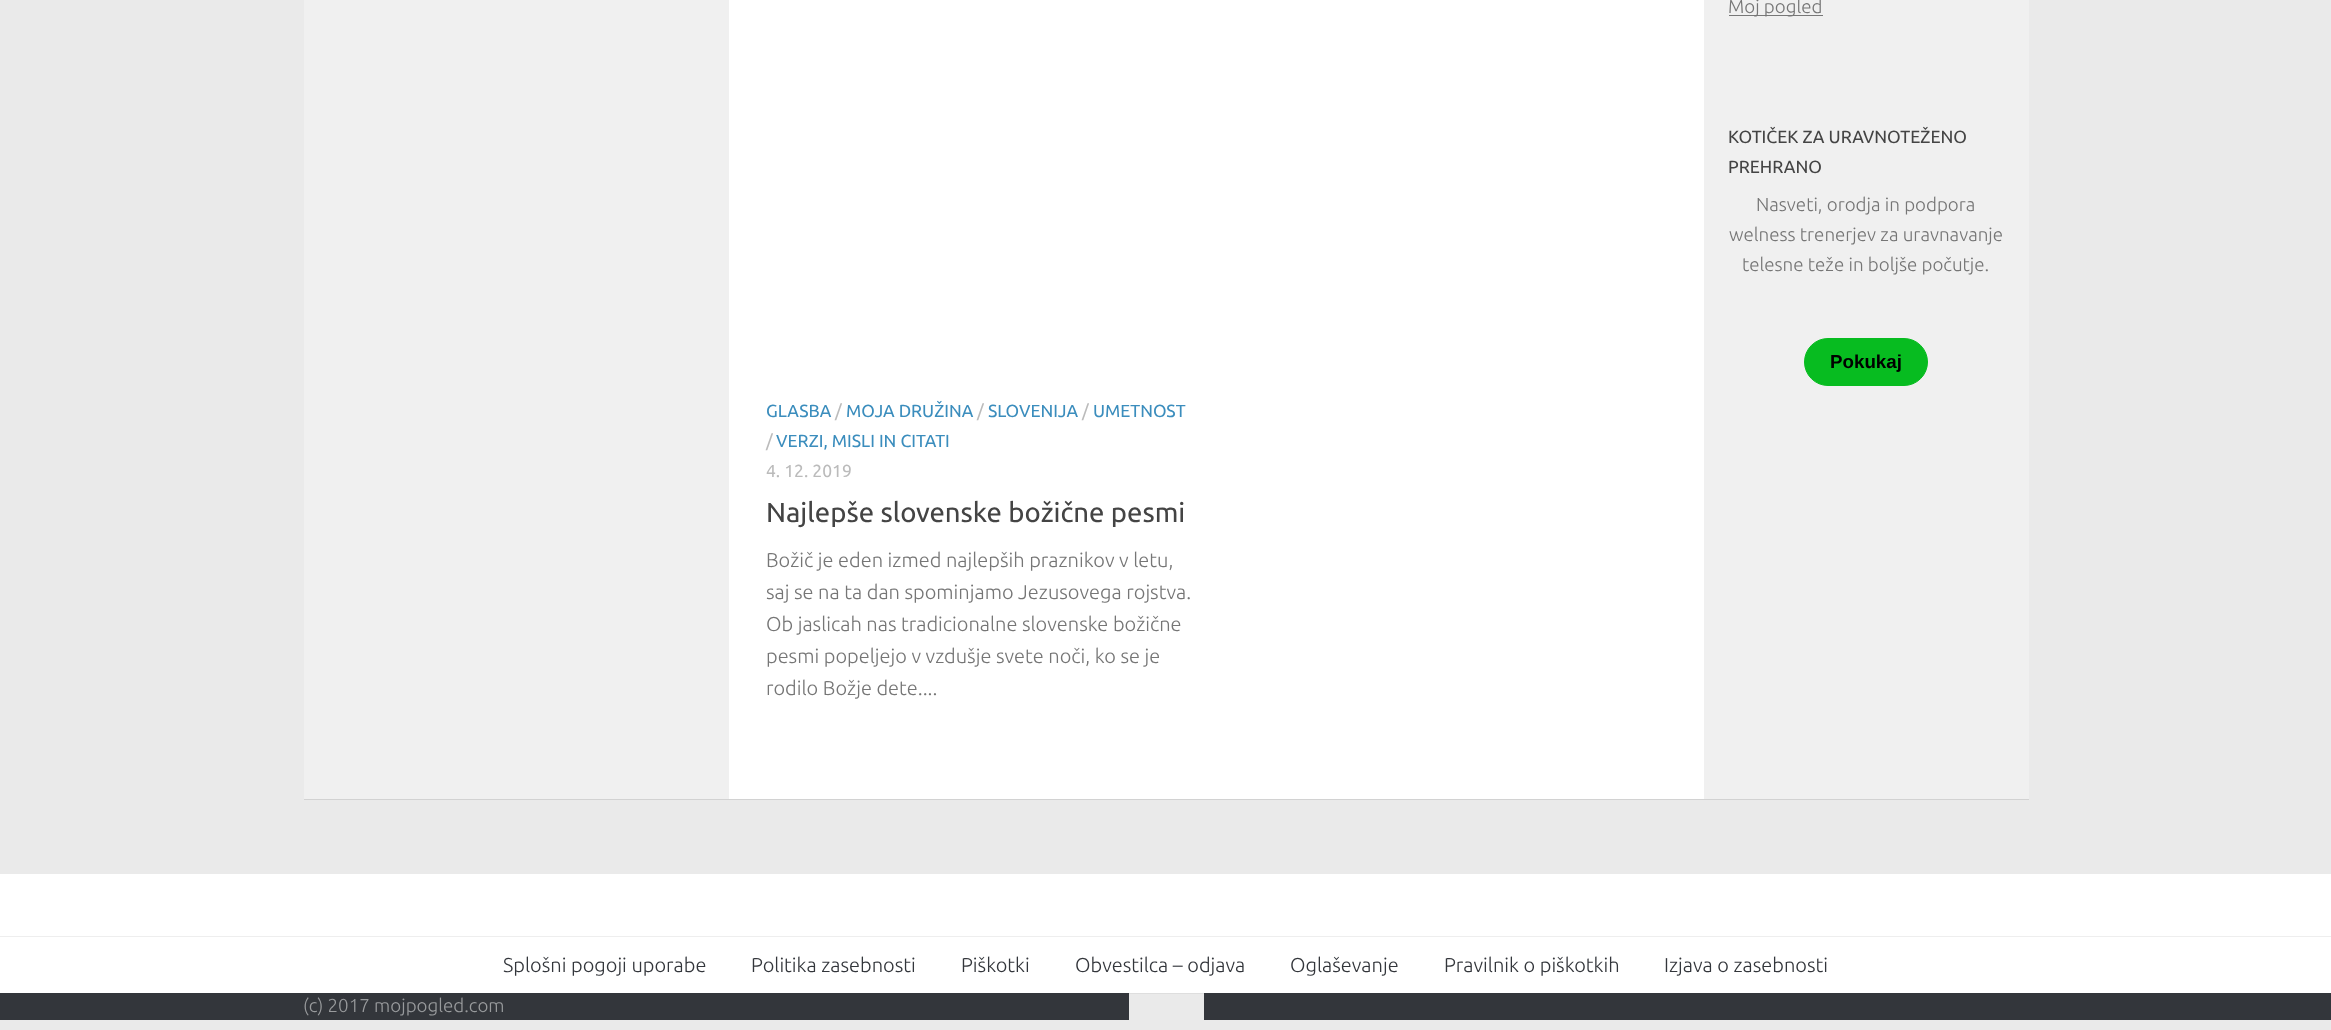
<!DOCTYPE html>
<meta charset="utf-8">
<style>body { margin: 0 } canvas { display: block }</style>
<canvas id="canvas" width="2331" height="1030"></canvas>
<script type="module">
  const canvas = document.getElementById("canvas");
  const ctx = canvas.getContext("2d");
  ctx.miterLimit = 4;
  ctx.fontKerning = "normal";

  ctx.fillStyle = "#eaeaea";
  ctx.fillRect(0, 0, 2331, 1030);
  ctx.fillStyle = "rgba(0, 0, 0, 0.1)";
  ctx.filter = "blur(0.5px)";
  ctx.beginPath();
  ctx.rect(304, -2, 1725, 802);
  ctx.fill();
  ctx.filter = "none";
  ctx.fillStyle = "#ffffff";
  ctx.fillRect(729, 0, 975, 799);
  ctx.fillStyle = "#f0f0f0";
  ctx.fillRect(304, 0, 425, 799);
  ctx.fillRect(1704, 0, 325, 799);
  ctx.fillStyle = "#777777";
  ctx.fillRect(1729, 15, 94, 1);
  ctx.font = "300 18.75px Ubuntu";
  ctx.fillStyle = "#767676";
  ctx.fillText("Moj pogled", 1728, 13);
  ctx.font = "17.6px Ubuntu";
  ctx.fillStyle = "#444444";
  ctx.fillText("KOTIČEK ZA URAVNOTEŽENO", 1728, 143);
  ctx.fillText("PREHRANO", 1728, 173);
  ctx.font = "300 18.75px Ubuntu";
  ctx.fillStyle = "#767676";
  ctx.fillText("Nasveti, orodja in podpora", 1756, 211);
  ctx.fillText("welness trenerjev za uravnavanje", 1729, 241);
  ctx.fillText("telesne teže in boljše počutje.", 1742, 271);
  ctx.fillStyle = "#07bc20";
  ctx.beginPath();
  ctx.roundRect(1804.5, 338.5, 123, 47, 23.5);
  ctx.fill();
  ctx.strokeStyle = "#07bc20";
  ctx.stroke();
  ctx.font = "bold 18.75px Liberation Sans";
  ctx.fillStyle = "#000000";
  ctx.fillText("Pokukaj", 1830, 368);
  ctx.font = "17.5px Ubuntu";
  ctx.fillStyle = "#3b8dbd";
  ctx.fillText("GLASBA", 766, 417);
  ctx.fillStyle = "#bbbbbb";
  ctx.fillText("/", 835, 417);
  ctx.fillStyle = "#3b8dbd";
  ctx.fillText("MOJA DRUŽINA", 846, 417);
  ctx.fillStyle = "#bbbbbb";
  ctx.fillText("/", 977, 417);
  ctx.fillStyle = "#3b8dbd";
  ctx.fillText("SLOVENIJA", 988, 417);
  ctx.fillStyle = "#bbbbbb";
  ctx.fillText("/", 1082, 417);
  ctx.fillStyle = "#3b8dbd";
  ctx.fillText("UMETNOST", 1093, 417);
  ctx.fillStyle = "#bbbbbb";
  ctx.fillText("/", 766, 447);
  ctx.fillStyle = "#3b8dbd";
  ctx.fillText("VERZI, MISLI IN CITATI", 776, 447);
  ctx.fillStyle = "#bbbbbb";
  ctx.fillText("4. 12. 2019", 766, 477);
  ctx.font = "27.5px Ubuntu";
  ctx.fillStyle = "#444444";
  ctx.fillText("Najlepše slovenske božične pesmi", 766, 522);
  ctx.font = "300 20px Ubuntu";
  ctx.fillStyle = "#767676";
  ctx.fillText("Božič je eden izmed najlepših praznikov v letu,", 766, 567);
  ctx.fillText("saj se na ta dan spominjamo Jezusovega rojstva.", 766, 599);
  ctx.fillText("Ob jaslicah nas tradicionalne slovenske božične", 766, 631);
  ctx.fillText("pesmi popeljejo v vzdušje svete noči, ko se je", 766, 663);
  ctx.fillText("rodilo Božje dete....", 766, 695);
  ctx.fillStyle = "#ffffff";
  ctx.fillRect(0, 874, 2331, 119);
  ctx.fillStyle = "#eeeeee";
  ctx.fillRect(0, 936, 2331, 1);
  ctx.fillStyle = "#33363b";
  ctx.fillText("Splošni pogoji uporabe", 503, 972);
  ctx.fillText("Politika zasebnosti", 751, 972);
  ctx.fillText("Piškotki", 961, 972);
  ctx.fillText("Obvestilca – odjava", 1075, 972);
  ctx.fillText("Oglaševanje", 1290, 972);
  ctx.fillText("Pravilnik o piškotkih", 1444, 972);
  ctx.fillText("Izjava o zasebnosti", 1664, 972);
  ctx.fillRect(0, 993, 2331, 27);
  ctx.font = "300 18.75px Ubuntu";
  ctx.fillStyle = "#999b9d";
  ctx.fillText("(c) 2017 mojpogled.com", 303, 1012);
  ctx.fillStyle = "#eaeaea";
  ctx.beginPath();
  ctx.roundRect(1129, 993, 75, 37, [0, 0, 4, 4]);
  ctx.fill();
  ctx.fillStyle = "#dedede";
  ctx.fillRect(1129, 993, 75, 1);
</script>
